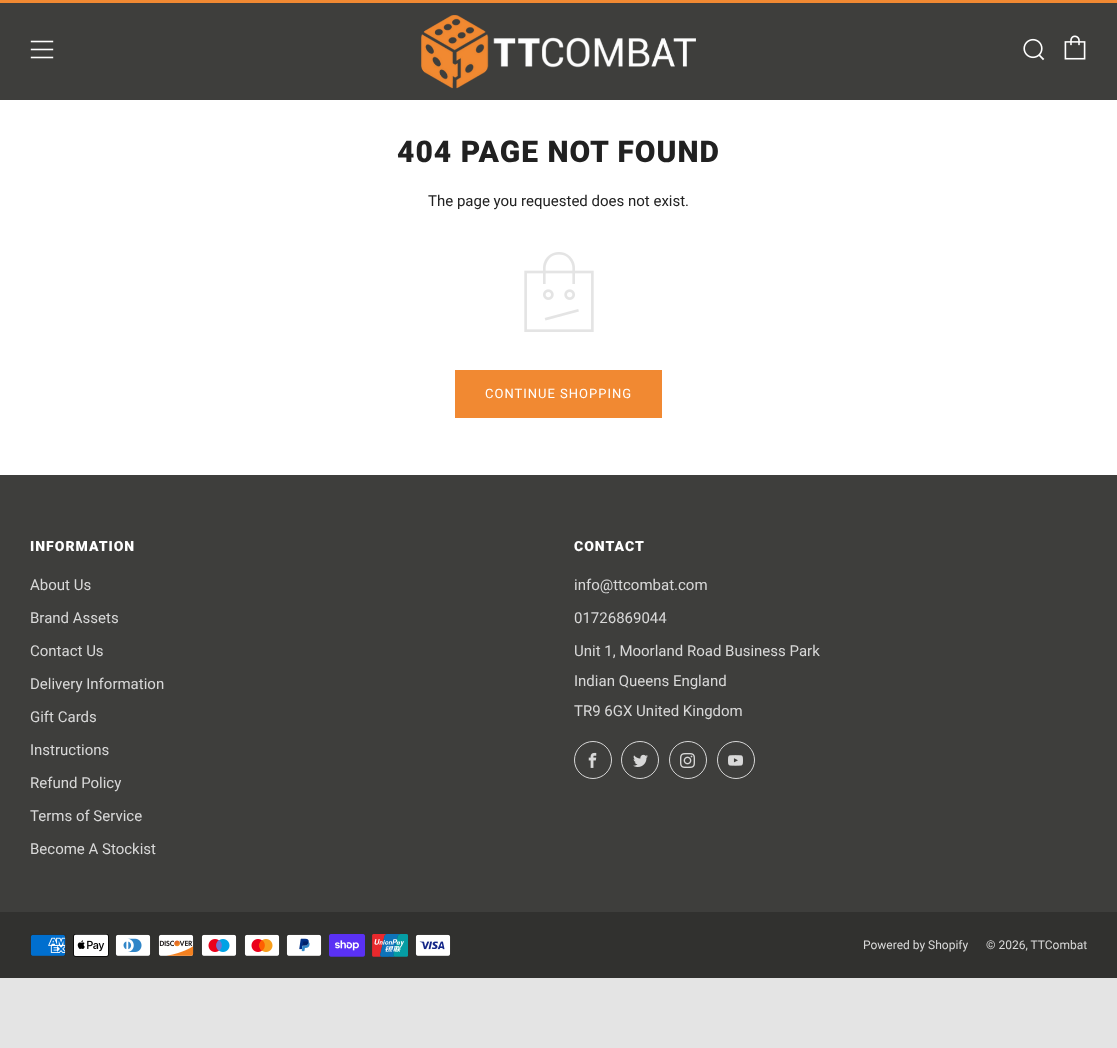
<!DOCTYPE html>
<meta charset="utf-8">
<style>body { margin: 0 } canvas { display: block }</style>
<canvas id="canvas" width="1117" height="1048"></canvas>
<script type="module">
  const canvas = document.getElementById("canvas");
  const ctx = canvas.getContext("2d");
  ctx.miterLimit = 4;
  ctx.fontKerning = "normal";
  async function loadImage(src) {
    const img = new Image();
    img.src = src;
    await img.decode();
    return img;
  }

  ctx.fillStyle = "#e4e4e4";
  ctx.fillRect(0, 0, 1117, 1048);
  ctx.fillStyle = "#ffffff";
  ctx.fillRect(0, 100, 1117, 375);
  ctx.fillStyle = "#3e3e3c";
  ctx.fillRect(0, 3, 1117, 97);
  ctx.fillStyle = "#f18932";
  ctx.fillRect(0, 0, 1117, 3);
  ctx.drawImage(await loadImage("img1.png"), 30, 40, 24, 19);
  ctx.drawImage(await loadImage("img2.png"), 421, 15, 275, 74);
  ctx.drawImage(await loadImage("img3.png"), 1023, 38, 22, 23);
  ctx.drawImage(await loadImage("img4.png"), 1064, 35, 22, 25);
  ctx.letterSpacing = "1px";
  ctx.font = "900 30px Roboto";
  ctx.fillStyle = "#212121";
  ctx.fillText("404 PAGE NOT FOUND", 397, 162);
  ctx.letterSpacing = "0px";
  ctx.font = "15px Roboto";
  ctx.fillText("The page you requested does not exist.", 428, 206);
  ctx.drawImage(await loadImage("img5.png"), 524, 252, 70, 80);
  ctx.fillStyle = "#f18932";
  ctx.fillRect(455, 370, 207, 48);
  ctx.letterSpacing = "1px";
  ctx.font = "13px Roboto";
  ctx.fillStyle = "#ffffff";
  ctx.fillText("CONTINUE SHOPPING", 485, 398);
  ctx.fillStyle = "#3e3e3c";
  ctx.fillRect(0, 475, 1117, 437);
  ctx.font = "900 14px Roboto";
  ctx.fillStyle = "#ffffff";
  ctx.fillText("INFORMATION", 30, 551);
  ctx.letterSpacing = "0px";
  ctx.font = "15px Roboto";
  ctx.fillStyle = "#d8d8d8";
  ctx.fillText("About Us", 30, 590);
  ctx.fillText("Brand Assets", 30, 623);
  ctx.fillText("Contact Us", 30, 656);
  ctx.fillText("Delivery Information", 30, 689);
  ctx.fillText("Gift Cards", 30, 722);
  ctx.fillText("Instructions", 30, 755);
  ctx.fillText("Refund Policy", 30, 788);
  ctx.fillText("Terms of Service", 30, 821);
  ctx.fillText("Become A Stockist", 30, 854);
  ctx.letterSpacing = "1px";
  ctx.font = "900 14px Roboto";
  ctx.fillStyle = "#ffffff";
  ctx.fillText("CONTACT", 574, 551);
  ctx.letterSpacing = "0px";
  ctx.font = "15px Roboto";
  ctx.fillStyle = "#d8d8d8";
  ctx.fillText("info@ttcombat.com", 574, 590);
  ctx.fillText("01726869044", 574, 623);
  ctx.fillText("Unit 1, Moorland Road Business Park", 574, 656);
  ctx.fillText("Indian Queens England", 574, 686);
  ctx.fillText("TR9 6GX United Kingdom", 574, 716);
  ctx.beginPath();
  ctx.arc(593, 760, 18.5, 0, Math.PI * 2);
  ctx.strokeStyle = "#d8d8d8";
  ctx.stroke();
  ctx.drawImage(await loadImage("img6.png"), 588, 752, 9, 16);
  ctx.beginPath();
  ctx.arc(640, 760, 18.5, 0, Math.PI * 2);
  ctx.stroke();
  ctx.drawImage(await loadImage("img7.png"), 633, 754, 15, 13);
  ctx.beginPath();
  ctx.arc(688, 760, 18.5, 0, Math.PI * 2);
  ctx.stroke();
  ctx.drawImage(await loadImage("img8.png"), 680, 753, 15, 15);
  ctx.beginPath();
  ctx.arc(736, 760, 18.5, 0, Math.PI * 2);
  ctx.stroke();
  ctx.drawImage(await loadImage("img9.png"), 728, 755, 15, 11);
  ctx.fillStyle = "#31312f";
  ctx.fillRect(0, 912, 1117, 66);
  ctx.drawImage(await loadImage("img10.png"), 30, 934, 36, 22);
  ctx.drawImage(await loadImage("img11.png"), 73, 934, 36, 23);
  ctx.drawImage(await loadImage("img12.png"), 115, 934, 36, 22);
  ctx.drawImage(await loadImage("img13.png"), 158, 934, 36, 22);
  ctx.drawImage(await loadImage("img14.png"), 201, 934, 36, 22);
  ctx.drawImage(await loadImage("img15.png"), 244, 934, 36, 22);
  ctx.drawImage(await loadImage("img16.png"), 286, 934, 36, 22);
  ctx.drawImage(await loadImage("img17.png"), 329, 934, 36, 23);
  ctx.drawImage(await loadImage("img18.png"), 372, 934, 36, 23);
  ctx.drawImage(await loadImage("img19.png"), 415, 934, 36, 22);
  ctx.font = "12px Roboto";
  ctx.fillStyle = "#d8d8d8";
  ctx.fillText("Powered by Shopify", 863, 949);
  ctx.fillText("© 2026, TTCombat", 986, 949);
</script>
